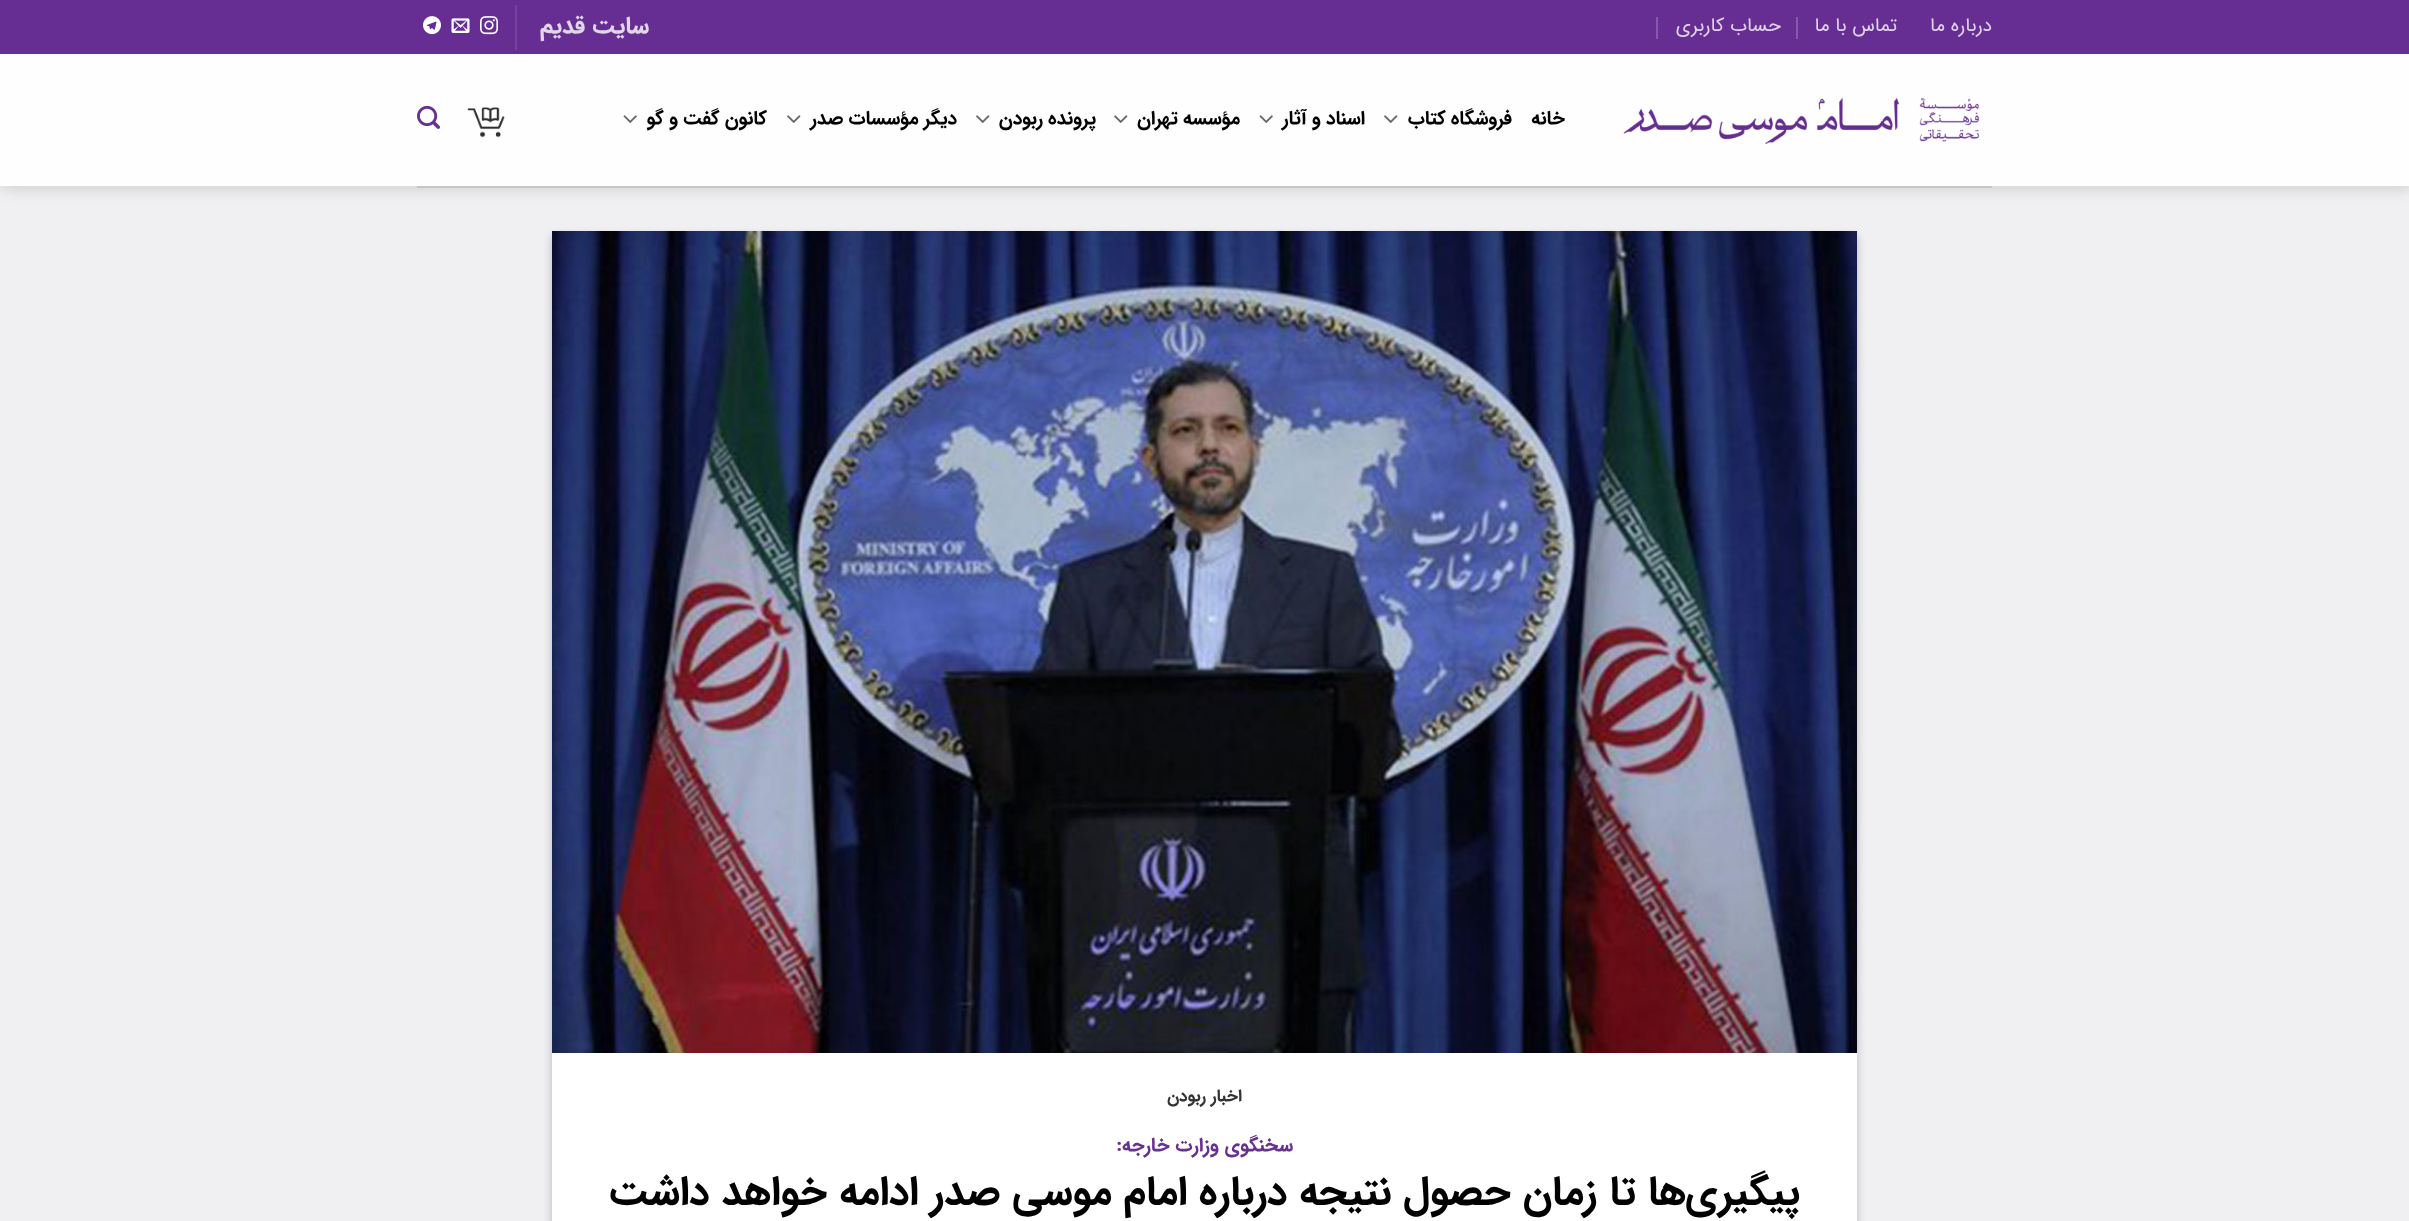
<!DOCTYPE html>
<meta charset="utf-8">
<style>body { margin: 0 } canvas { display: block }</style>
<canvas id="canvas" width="2409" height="1221"></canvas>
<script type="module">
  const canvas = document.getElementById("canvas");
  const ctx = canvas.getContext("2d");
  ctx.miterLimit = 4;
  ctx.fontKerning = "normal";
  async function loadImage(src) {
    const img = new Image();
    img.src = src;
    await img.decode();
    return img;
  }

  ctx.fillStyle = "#f0f0f2";
  ctx.fillRect(0, 0, 2409, 1221);
  ctx.fillStyle = "rgba(0, 0, 0, 0.15)";
  ctx.filter = "blur(7.5px)";
  ctx.beginPath();
  ctx.rect(2, 2, 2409, 186);
  ctx.fill();
  ctx.filter = "none";
  ctx.fillStyle = "#662e93";
  ctx.fillRect(0, 0, 2409, 54);
  ctx.direction = "rtl";
  ctx.font = "19.25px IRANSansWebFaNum";
  ctx.fillStyle = "#e0d5e9";
  ctx.fillText("درباره ما", 1992, 31);
  ctx.fillText("تماس با ما", 1897, 31);
  ctx.fillStyle = "#8558a9";
  ctx.fillRect(1796, 17, 2, 22);
  ctx.fillStyle = "#e0d5e9";
  ctx.fillText("حساب کاربری", 1781, 31);
  ctx.fillStyle = "#8558a9";
  ctx.fillRect(1656, 17, 2, 22);
  ctx.font = "bold 24px IRANSansWebFaNum";
  ctx.fillStyle = "#e0d5e9";
  ctx.fillText("سایت قدیم", 649, 33);
  ctx.fillStyle = "#75439e";
  ctx.fillRect(515, 5, 2, 45);
  ctx.drawImage(await loadImage("img1.png"), 480, 16, 18, 19);
  ctx.drawImage(await loadImage("img2.png"), 451, 18, 19, 15);
  ctx.drawImage(await loadImage("img3.png"), 423, 16, 18, 19);
  ctx.fillStyle = "#fefefe";
  ctx.fillRect(0, 54, 2409, 132);
  ctx.drawImage(await loadImage("img4.png"), 1623, 97, 357, 47);
  ctx.letterSpacing = "0.4px";
  ctx.font = "bold 19.25px IRANSansWebFaNum";
  ctx.fillStyle = "#000000";
  ctx.fillText("خانه", 1565, 124);
  ctx.wordSpacing = "-1px";
  ctx.fillText("فروشگاه کتاب", 1512, 124);
  ctx.drawImage(await loadImage("img5.png"), 1384, 115, 14, 8);
  ctx.fillText("اسناد و آثار", 1365, 124);
  ctx.drawImage(await loadImage("img6.png"), 1259, 115, 14, 8);
  ctx.fillText("مؤسسه تهران", 1240, 124);
  ctx.drawImage(await loadImage("img5.png"), 1114, 115, 14, 8);
  ctx.fillText("پرونده ربودن", 1096, 124);
  ctx.drawImage(await loadImage("img5.png"), 976, 115, 14, 8);
  ctx.fillText("دیگر مؤسسات صدر", 957, 124);
  ctx.drawImage(await loadImage("img5.png"), 787, 115, 14, 8);
  ctx.fillText("کانون گفت و گو", 767, 124);
  ctx.drawImage(await loadImage("img6.png"), 623, 115, 14, 8);
  ctx.drawImage(await loadImage("img7.png"), 467, 106, 38, 32);
  ctx.drawImage(await loadImage("img8.png"), 417, 105, 23, 24);
  ctx.fillStyle = "#c6c6c8";
  ctx.fillRect(417, 186, 1575, 2);
  ctx.fillStyle = "rgba(0, 0, 0, 0.23)";
  ctx.filter = "blur(4.5px)";
  ctx.beginPath();
  ctx.rect(552, 236, 1305, 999);
  ctx.fill();
  ctx.filter = "none";
  ctx.fillStyle = "#ffffff";
  ctx.fillRect(552, 1053, 1305, 168);
  ctx.drawImage(await loadImage("img9.png"), 552, 231, 1305, 822);
  ctx.letterSpacing = "0px";
  ctx.wordSpacing = "0px";
  ctx.font = "bold 17px IRANSansWebFaNum";
  ctx.fillStyle = "#333333";
  ctx.fillText("اخبار ربودن", 1242, 1101);
  ctx.font = "bold 19.5px IRANSansWebFaNum";
  ctx.fillStyle = "#683091";
  ctx.fillText("سخنگوی وزارت خارجه:", 1293, 1151);
  ctx.font = "bold 40.8px IRANSansWebFaNum";
  ctx.fillStyle = "#000000";
  ctx.fillText("پیگیری‌ها تا زمان حصول نتیجه درباره امام موسی صدر ادامه خواهد داشت", 1800, 1204);
</script>
